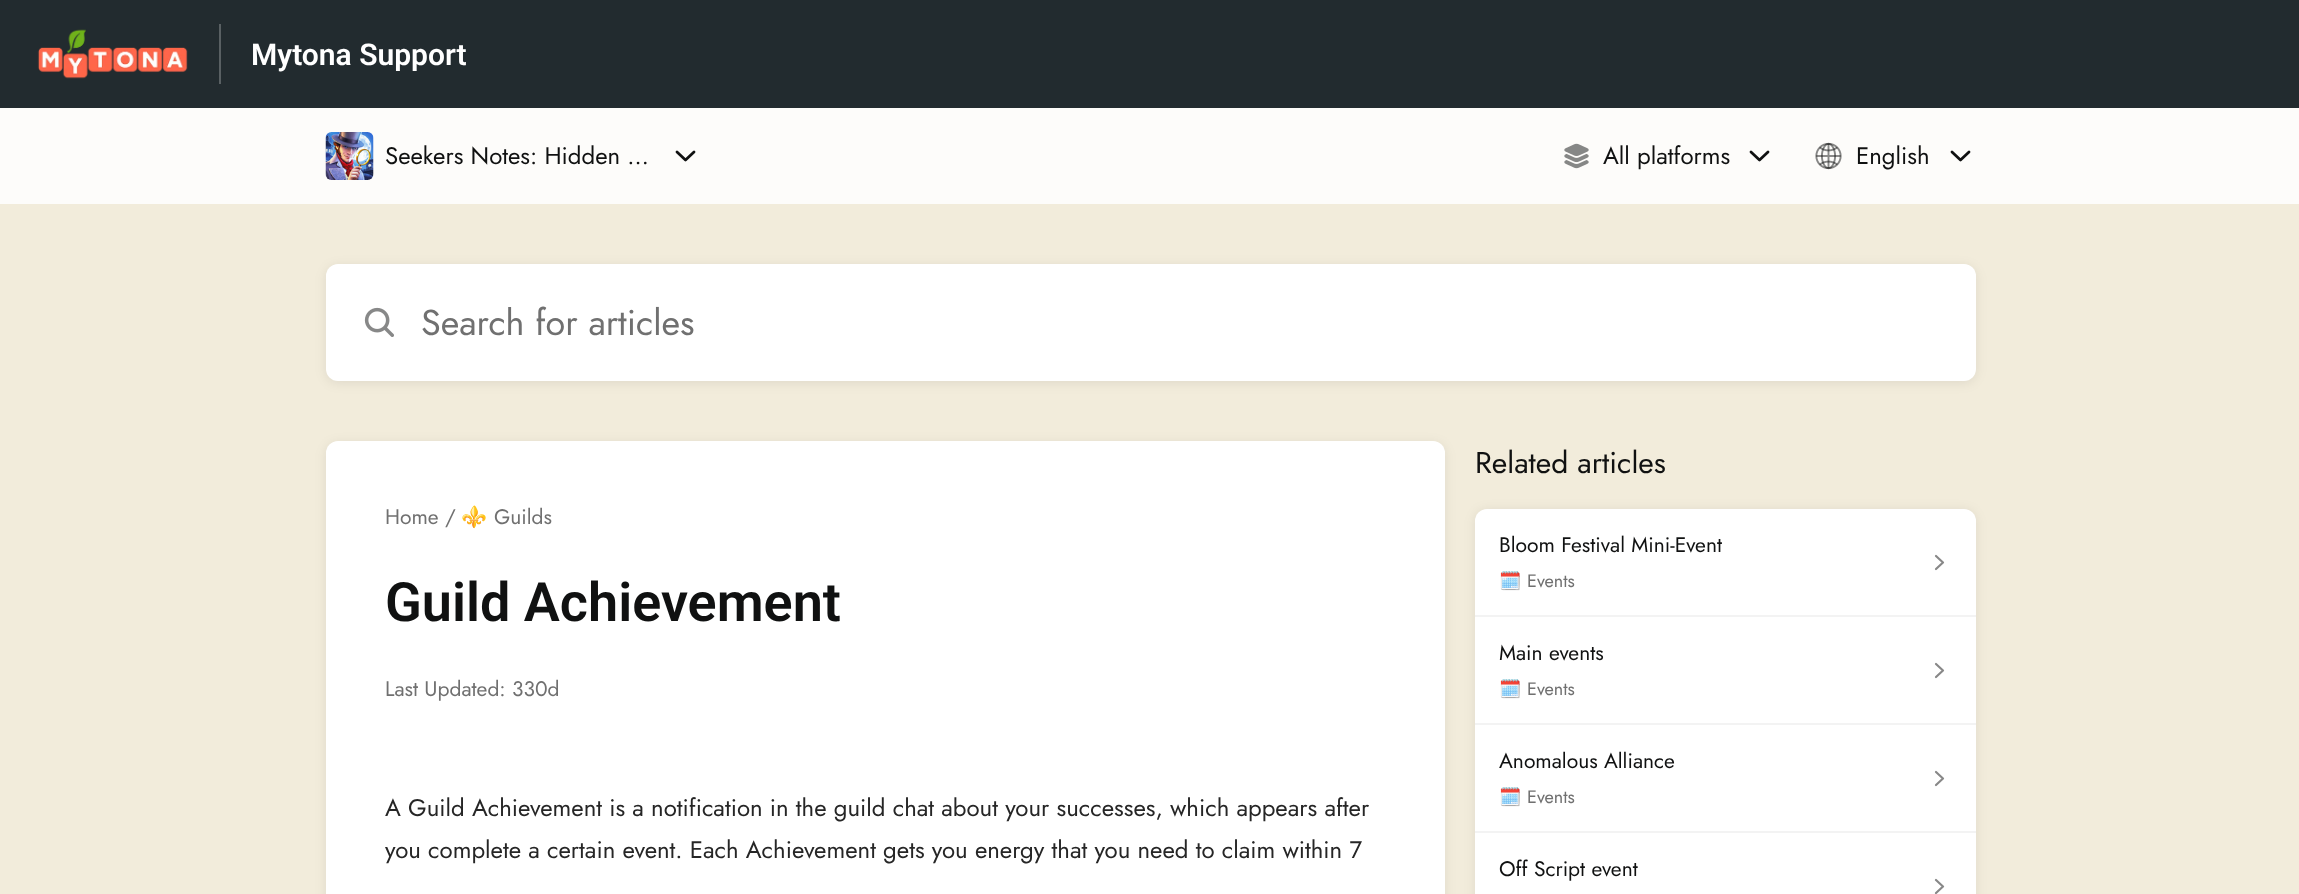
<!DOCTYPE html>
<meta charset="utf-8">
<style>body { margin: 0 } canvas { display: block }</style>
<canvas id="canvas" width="2299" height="894"></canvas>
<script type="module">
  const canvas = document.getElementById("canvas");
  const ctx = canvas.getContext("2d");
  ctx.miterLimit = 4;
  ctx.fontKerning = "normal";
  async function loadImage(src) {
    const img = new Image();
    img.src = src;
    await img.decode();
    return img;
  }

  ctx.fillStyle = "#fdfcfa";
  ctx.fillRect(0, 0, 2299, 894);
  ctx.fillStyle = "#222b2f";
  ctx.fillRect(0, 0, 2299, 108);
  ctx.fillStyle = "#596063";
  ctx.fillRect(219, 24, 2, 60);
  ctx.drawImage(await loadImage("img1.png"), 37, 29, 151, 50);
  ctx.font = "600 30px Roboto";
  ctx.fillStyle = "#ffffff";
  ctx.fillText("Mytona Support", 251, 65);
  ctx.drawImage(await loadImage("img2.png"), 325, 132, 49, 48);
  ctx.font = "24px Jost";
  ctx.fillStyle = "#101111";
  ctx.fillText("Seekers Notes: Hidden …", 385, 164);
  ctx.beginPath();
  ctx.moveTo(677, 152);
  ctx.lineTo(685.5, 160);
  ctx.lineTo(694, 152);
  ctx.strokeStyle = "#101111";
  ctx.lineWidth = 2.8;
  ctx.lineCap = "round";
  ctx.lineJoin = "round";
  ctx.stroke();
  ctx.drawImage(await loadImage("img3.png"), 1564, 143, 25, 26);
  ctx.fillText("All platforms", 1603, 164);
  ctx.beginPath();
  ctx.moveTo(1751, 152);
  ctx.lineTo(1759.5, 160);
  ctx.lineTo(1768, 152);
  ctx.stroke();
  ctx.drawImage(await loadImage("img4.png"), 1815, 142, 27, 28);
  ctx.fillText("English", 1856, 164);
  ctx.beginPath();
  ctx.moveTo(1952, 152);
  ctx.lineTo(1960.5, 160);
  ctx.lineTo(1969, 152);
  ctx.stroke();
  ctx.fillStyle = "#f2ecdb";
  ctx.fillRect(0, 204, 2299, 690);
  ctx.fillStyle = "rgba(0, 0, 0, 0.08)";
  ctx.filter = "blur(6px)";
  ctx.beginPath();
  ctx.roundRect(326, 266, 1650, 117, 12);
  ctx.fill();
  ctx.filter = "none";
  ctx.fillStyle = "#ffffff";
  ctx.beginPath();
  ctx.roundRect(326, 264, 1650, 117, 12);
  ctx.fill();
  ctx.drawImage(await loadImage("img5.png"), 364, 307, 30, 30);
  ctx.font = "36px Jost";
  ctx.fillStyle = "#707070";
  ctx.fillText("Search for articles", 421, 335);
  ctx.fillStyle = "rgba(0, 0, 0, 0.08)";
  ctx.filter = "blur(6px)";
  ctx.beginPath();
  ctx.roundRect(326, 443, 1119, 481, 12);
  ctx.fill();
  ctx.filter = "none";
  ctx.fillStyle = "#ffffff";
  ctx.beginPath();
  ctx.roundRect(326, 441, 1119, 453, [12, 12, 0, 0]);
  ctx.fill();
  ctx.font = "21px Jost";
  ctx.fillStyle = "#707070";
  ctx.fillText("Home /", 385, 524);
  ctx.font = "21px Noto Color Emoji";
  ctx.fillText("⚜️", 461, 524);
  ctx.font = "21px Jost";
  ctx.fillText("Guilds", 494, 524);
  ctx.font = "600 54px Roboto";
  ctx.fillStyle = "#101111";
  ctx.fillText("Guild Achievement", 385, 621);
  ctx.font = "21px Jost";
  ctx.fillStyle = "#707070";
  ctx.fillText("Last Updated: 330d", 385, 696);
  ctx.font = "24px Jost";
  ctx.fillStyle = "#262626";
  ctx.fillText("A Guild Achievement is a notification in the guild chat about your successes, which appears after", 385, 816);
  ctx.fillText("you complete a certain event. Each Achievement gets you energy that you need to claim within 7", 385, 858);
  ctx.font = "30px Jost";
  ctx.fillStyle = "#101111";
  ctx.fillText("Related articles", 1475, 473);
  ctx.fillStyle = "rgba(0, 0, 0, 0.08)";
  ctx.filter = "blur(6px)";
  ctx.beginPath();
  ctx.roundRect(1475, 510, 501, 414, 12);
  ctx.fill();
  ctx.filter = "none";
  ctx.fillStyle = "#ffffff";
  ctx.beginPath();
  ctx.roundRect(1475, 509, 501, 385, [12, 12, 0, 0]);
  ctx.fill();
  ctx.fillStyle = "#f3f3f3";
  ctx.fillRect(1475, 615, 501, 2);
  ctx.font = "21px Jost";
  ctx.fillStyle = "#101111";
  ctx.fillText("Bloom Festival Mini-Event", 1499, 552);
  ctx.font = "18px Noto Color Emoji";
  ctx.fillStyle = "#707070";
  ctx.fillText("🗓️", 1499, 587);
  ctx.font = "18px Jost";
  ctx.fillText("Events", 1527, 587);
  ctx.beginPath();
  ctx.moveTo(1936, 556);
  ctx.lineTo(1943, 562.5);
  ctx.lineTo(1936, 569);
  ctx.strokeStyle = "#888888";
  ctx.lineWidth = 2.2;
  ctx.stroke();
  ctx.fillStyle = "#f3f3f3";
  ctx.fillRect(1475, 723, 501, 2);
  ctx.font = "21px Jost";
  ctx.fillStyle = "#101111";
  ctx.fillText("Main events", 1499, 660);
  ctx.font = "18px Noto Color Emoji";
  ctx.fillStyle = "#707070";
  ctx.fillText("🗓️", 1499, 695);
  ctx.font = "18px Jost";
  ctx.fillText("Events", 1527, 695);
  ctx.beginPath();
  ctx.moveTo(1936, 664);
  ctx.lineTo(1943, 670.5);
  ctx.lineTo(1936, 677);
  ctx.stroke();
  ctx.fillStyle = "#f3f3f3";
  ctx.fillRect(1475, 831, 501, 2);
  ctx.font = "21px Jost";
  ctx.fillStyle = "#101111";
  ctx.fillText("Anomalous Alliance", 1499, 768);
  ctx.font = "18px Noto Color Emoji";
  ctx.fillStyle = "#707070";
  ctx.fillText("🗓️", 1499, 803);
  ctx.font = "18px Jost";
  ctx.fillText("Events", 1527, 803);
  ctx.beginPath();
  ctx.moveTo(1936, 772);
  ctx.lineTo(1943, 778.5);
  ctx.lineTo(1936, 785);
  ctx.stroke();
  ctx.font = "21px Jost";
  ctx.fillStyle = "#101111";
  ctx.fillText("Off Script event", 1499, 876);
  ctx.beginPath();
  ctx.moveTo(1936, 880);
  ctx.lineTo(1943, 886.5);
  ctx.lineTo(1936, 893);
  ctx.stroke();
</script>
